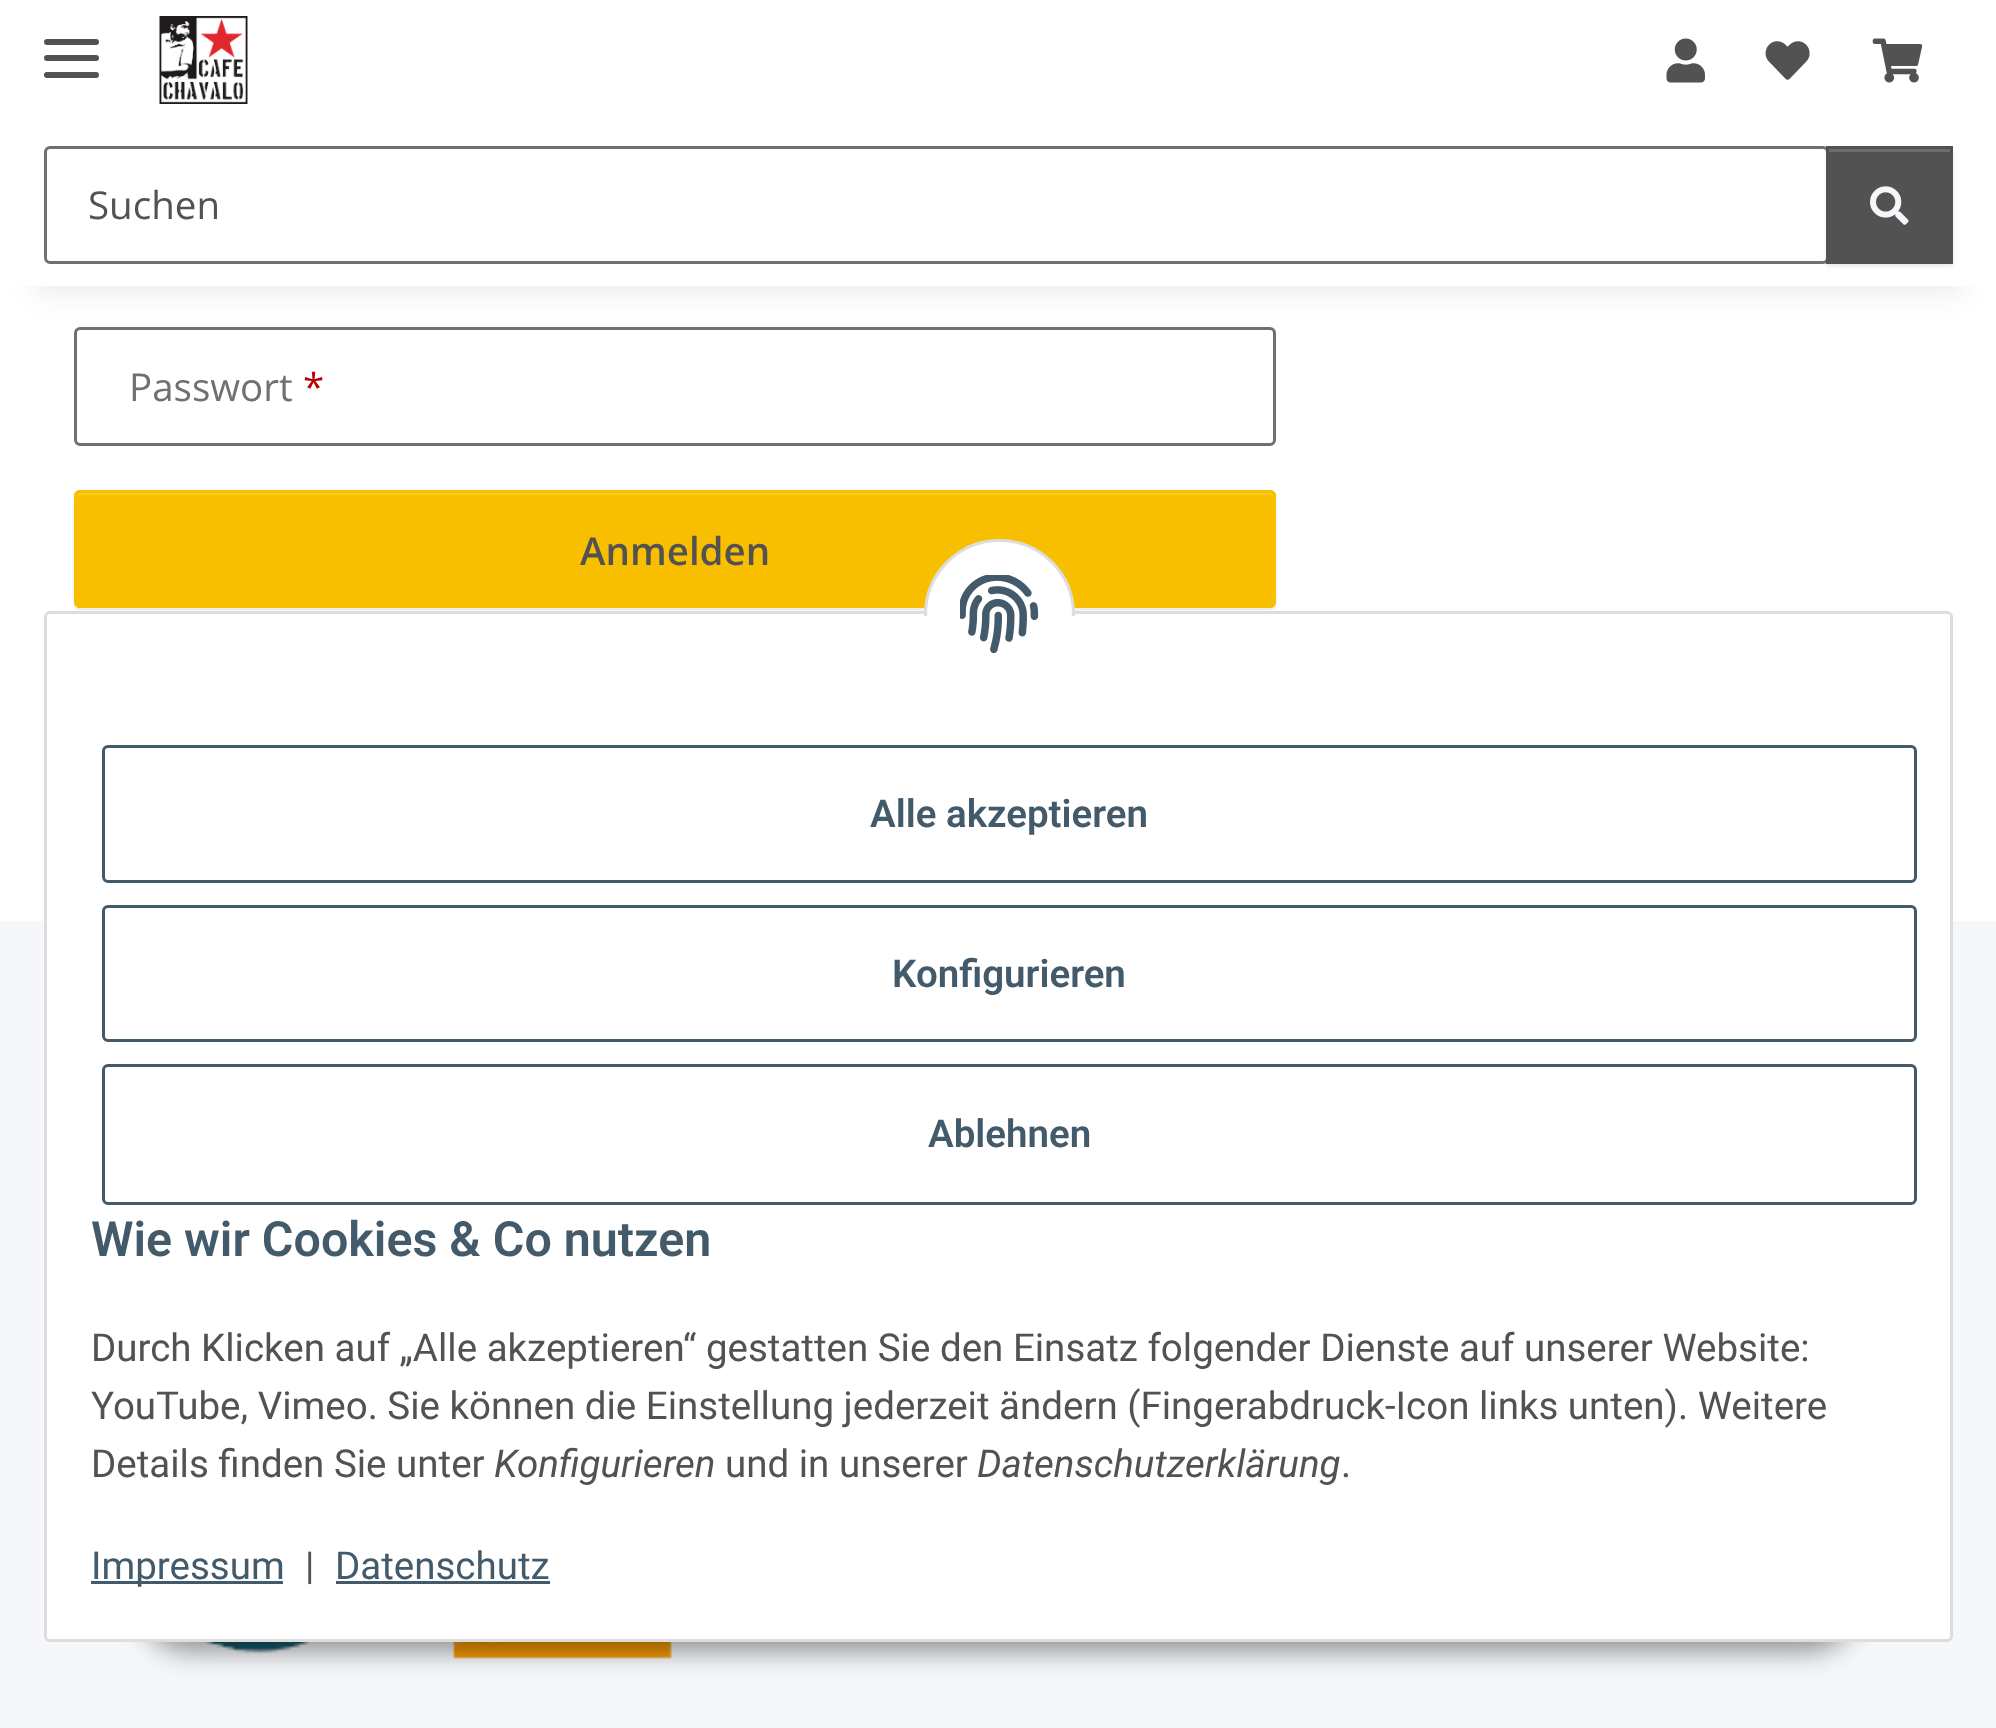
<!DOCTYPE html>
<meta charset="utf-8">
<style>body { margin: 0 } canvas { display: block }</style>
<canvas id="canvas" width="1996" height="1728"></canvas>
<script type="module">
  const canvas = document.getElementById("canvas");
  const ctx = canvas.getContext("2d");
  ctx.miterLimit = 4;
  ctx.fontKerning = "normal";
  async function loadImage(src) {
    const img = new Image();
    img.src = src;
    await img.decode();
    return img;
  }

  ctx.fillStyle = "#f5f7fa";
  ctx.fillRect(0, 0, 1996, 1728);
  ctx.fillStyle = "#ffffff";
  ctx.fillRect(0, 286, 1996, 635);
  ctx.beginPath();
  ctx.roundRect(75.5, 328.5, 1199, 116, 4.5);
  ctx.strokeStyle = "#707070";
  ctx.lineWidth = 3;
  ctx.stroke();
  ctx.fillStyle = "rgba(0, 0, 0, 0.06)";
  ctx.filter = "blur(12.5px)";
  ctx.beginPath();
  ctx.rect(33, 77, 1931, 220);
  ctx.fill();
  ctx.filter = "none";
  ctx.fillStyle = "#ffffff";
  ctx.fillRect(0, 0, 1996, 286);
  ctx.fillStyle = "#525252";
  ctx.beginPath();
  ctx.roundRect(44, 55, 55, 6, 3);
  ctx.fill();
  ctx.beginPath();
  ctx.roundRect(44, 39, 55, 6, 3);
  ctx.fill();
  ctx.beginPath();
  ctx.roundRect(44, 72, 55, 6, 3);
  ctx.fill();
  ctx.drawImage(await loadImage("img1.png"), 159, 16, 89, 88);
  ctx.drawImage(await loadImage("img2.png"), 1666, 38, 39, 45);
  ctx.drawImage(await loadImage("img3.png"), 1765, 41, 45, 39);
  ctx.drawImage(await loadImage("img4.png"), 1872, 38, 51, 45);
  ctx.beginPath();
  ctx.roundRect(45.5, 147.5, 1782, 115, 4.5);
  ctx.stroke();
  ctx.font = "38.5px Open Sans";
  ctx.fillText("Suchen", 88, 219);
  ctx.fillStyle = "rgba(0, 0, 0, 0.07)";
  ctx.filter = "blur(1.5px)";
  ctx.beginPath();
  ctx.rect(1826, 149, 127, 118);
  ctx.fill();
  ctx.filter = "none";
  ctx.fillStyle = "#525252";
  ctx.fillRect(1826, 146, 127, 118);
  ctx.fillStyle = "#6c6c6c";
  ctx.fillRect(1829, 149, 121, 3);
  ctx.drawImage(await loadImage("img5.png"), 1870, 186, 39, 39);
  ctx.fillStyle = "#707070";
  ctx.fillText("Passwort", 129, 401);
  ctx.fillStyle = "#b90000";
  ctx.fillText("*", 303, 401);
  ctx.fillStyle = "rgba(0, 0, 0, 0.07)";
  ctx.filter = "blur(1.5px)";
  ctx.beginPath();
  ctx.roundRect(74, 492, 1202, 119, 6);
  ctx.fill();
  ctx.filter = "none";
  ctx.fillStyle = "#f8bf00";
  ctx.beginPath();
  ctx.roundRect(74, 490, 1202, 118, 6);
  ctx.fill();
  ctx.fillStyle = "#f9c926";
  ctx.beginPath();
  ctx.moveTo(80, 495);
  ctx.lineTo(1270, 495);
  ctx.bezierCurveTo(1272, 495, 1273, 496, 1273, 498);
  ctx.lineTo(1273, 495);
  ctx.bezierCurveTo(1273, 493, 1272, 492, 1270, 492);
  ctx.lineTo(80, 492);
  ctx.bezierCurveTo(78, 492, 77, 493, 77, 495);
  ctx.lineTo(77, 498);
  ctx.bezierCurveTo(77, 496, 78, 495, 80, 495);
  ctx.closePath();
  ctx.fill();
  ctx.beginPath();
  ctx.roundRect(75.5, 491.5, 1199, 115, 4.5);
  ctx.strokeStyle = "#f8bf00";
  ctx.stroke();
  ctx.font = "600 38.5px Open Sans";
  ctx.fillStyle = "#525252";
  ctx.fillText("Anmelden", 580, 565);
  ctx.drawImage(await loadImage("img7.png"), 200, 1642, 114, 12);
  ctx.drawImage(await loadImage("img8.png"), 453, 1642, 219, 17);
  ctx.fillStyle = "rgba(0, 0, 0, 0.45)";
  ctx.filter = "blur(14px)";
  ctx.beginPath();
  ctx.roundRect(143, 1562, 1711, 88, 44);
  ctx.fill();
  ctx.filter = "none";
  ctx.fillStyle = "#ffffff";
  ctx.beginPath();
  ctx.roundRect(45.5, 612.5, 1906, 1028, 4.5);
  ctx.fill();
  ctx.strokeStyle = "#dddddd";
  ctx.stroke();
  ctx.beginPath();
  ctx.arc(999.5, 614.5, 74, 0, Math.PI * 2);
  ctx.fill();
  ctx.stroke();
  ctx.fillRect(924, 616, 151, 74);
  ctx.drawImage(await loadImage("img6.png"), 960, 575, 79, 79);
  ctx.beginPath();
  ctx.roundRect(103.5, 746.5, 1812, 135, 4.5);
  ctx.strokeStyle = "#435a6b";
  ctx.stroke();
  ctx.font = "600 38.5px Roboto";
  ctx.fillStyle = "#435a6b";
  ctx.fillText("Alle akzeptieren", 870, 827);
  ctx.beginPath();
  ctx.roundRect(103.5, 906.5, 1812, 134, 4.5);
  ctx.stroke();
  ctx.fillText("Konfigurieren", 892, 987);
  ctx.beginPath();
  ctx.roundRect(103.5, 1065.5, 1812, 138, 4.5);
  ctx.stroke();
  ctx.fillText("Ablehnen", 928, 1147);
  ctx.font = "600 48.4px Roboto";
  ctx.fillText("Wie wir Cookies & Co nutzen", 91, 1256);
  ctx.font = "38.5px Roboto";
  ctx.fillStyle = "#525252";
  ctx.fillText("Durch Klicken auf „Alle akzeptieren“ gestatten Sie den Einsatz folgender Dienste auf unserer Website:", 91, 1361);
  ctx.fillText("YouTube, Vimeo. Sie können die Einstellung jederzeit ändern (Fingerabdruck-Icon links unten). Weitere", 91, 1419);
  ctx.fillText("Details finden Sie unter", 91, 1477);
  ctx.font = "italic 38.5px Roboto";
  ctx.fillText("Konfigurieren", 494, 1477);
  ctx.font = "38.5px Roboto";
  ctx.fillText("und in unserer", 725, 1477);
  ctx.font = "italic 38.5px Roboto";
  ctx.fillText("Datenschutzerklärung", 977, 1477);
  ctx.font = "38.5px Roboto";
  ctx.fillText(".", 1341, 1477);
  ctx.fillStyle = "#435a6b";
  ctx.fillRect(91, 1581, 192, 3);
  ctx.fillText("Impressum", 91, 1579);
  ctx.fillStyle = "#525252";
  ctx.fillText("|", 305, 1579);
  ctx.fillStyle = "#435a6b";
  ctx.fillText("Datenschutz", 335, 1579);
  ctx.fillRect(336, 1581, 214, 3);
</script>
